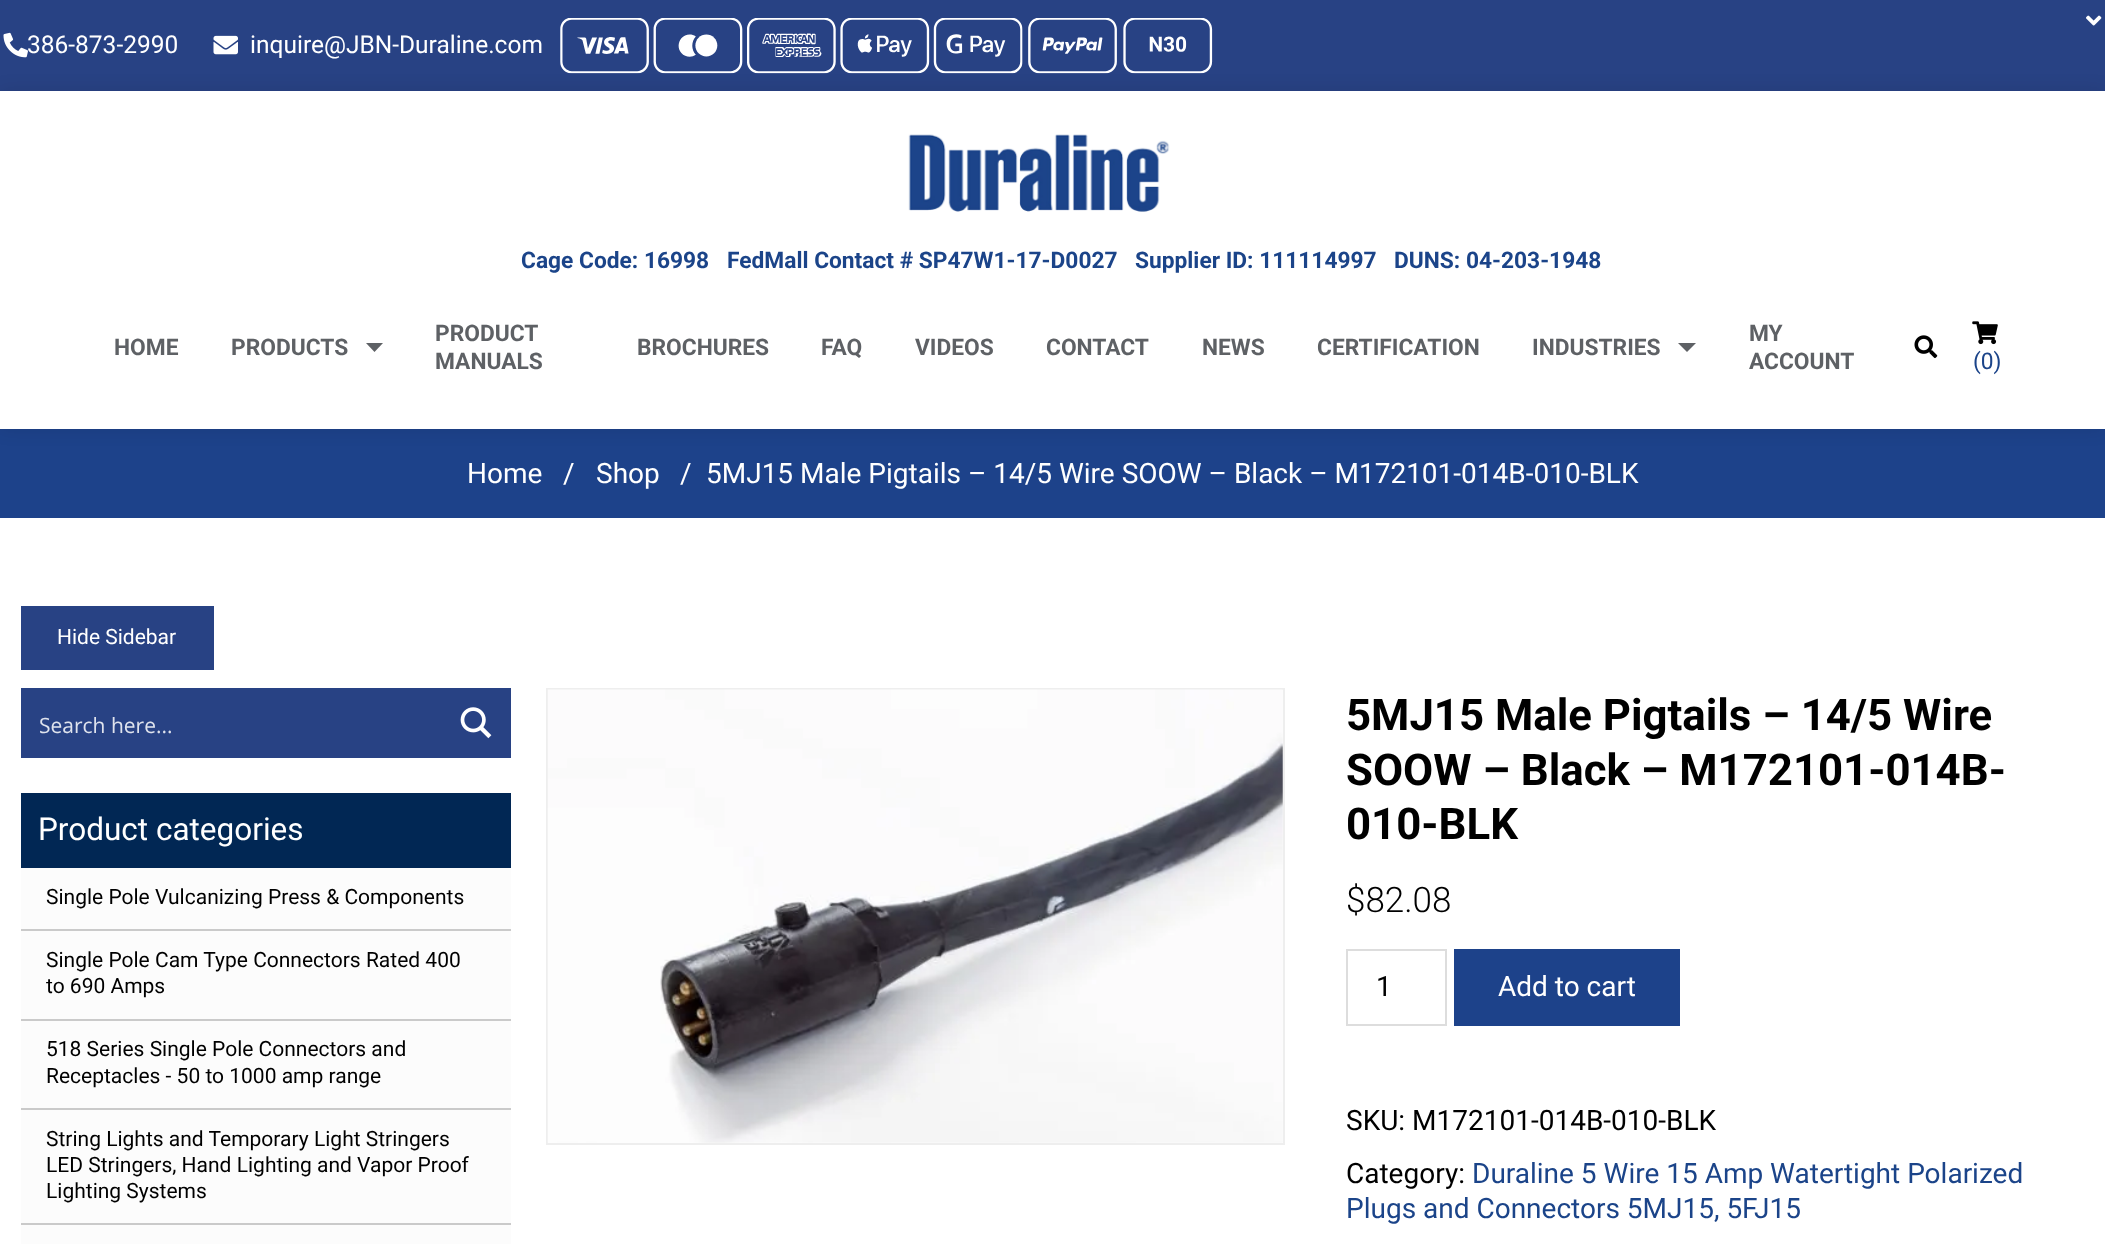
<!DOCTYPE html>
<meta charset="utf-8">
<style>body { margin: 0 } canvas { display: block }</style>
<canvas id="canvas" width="2105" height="1244"></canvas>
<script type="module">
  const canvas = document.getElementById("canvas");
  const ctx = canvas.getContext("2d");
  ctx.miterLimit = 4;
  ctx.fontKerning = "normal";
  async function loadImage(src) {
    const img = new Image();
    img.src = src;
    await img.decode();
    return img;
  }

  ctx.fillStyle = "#ffffff";
  ctx.fillRect(0, 0, 2105, 1244);
  ctx.fillStyle = "#fcfcfc";
  ctx.fillRect(21, 1021, 490, 87);
  ctx.fillStyle = "#cacaca";
  ctx.fillRect(21, 1019, 490, 2);
  ctx.fillStyle = "#284284";
  ctx.fillRect(0, 0, 2105, 91);
  ctx.drawImage(await loadImage("img1.png"), 3, 32, 25, 26);
  ctx.font = "24.5px Roboto";
  ctx.fillStyle = "#ffffff";
  ctx.fillText("386-873-2990", 27, 53);
  ctx.drawImage(await loadImage("img2.png"), 213, 35, 25, 20);
  ctx.fillText("inquire@JBN-Duraline.com", 250, 53);
  ctx.drawImage(await loadImage("img3.png"), 560, 18, 653, 56);
  ctx.drawImage(await loadImage("img4.png"), 2086, 15, 16, 11);
  ctx.fillStyle = "#1d428a";
  ctx.fillRect(0, 429, 2105, 89);
  ctx.fillStyle = "rgba(0, 0, 0, 0.1)";
  ctx.filter = "blur(9px)";
  ctx.beginPath();
  ctx.rect(0, 91, 2105, 338);
  ctx.fill();
  ctx.filter = "none";
  ctx.fillStyle = "#ffffff";
  ctx.fillRect(0, 91, 2105, 338);
  ctx.drawImage(await loadImage("img5.png"), 908, 134, 262, 78);
  ctx.font = "bold 22.75px Roboto";
  ctx.fillStyle = "#1b4489";
  ctx.fillText("Cage Code: 16998", 521, 268);
  ctx.fillText("FedMall Contact # SP47W1-17-D0027", 727, 268);
  ctx.fillText("Supplier ID: 111114997", 1135, 268);
  ctx.fillText("DUNS: 04-203-1948", 1394, 268);
  ctx.fillStyle = "#5e6165";
  ctx.fillText("HOME", 114, 355);
  ctx.fillText("PRODUCTS", 231, 355);
  ctx.beginPath();
  ctx.moveTo(366, 343);
  ctx.lineTo(383, 343);
  ctx.lineTo(374.5, 352);
  ctx.closePath();
  ctx.fill();
  ctx.fillText("PRODUCT", 435, 341);
  ctx.fillText("MANUALS", 435, 369);
  ctx.fillText("BROCHURES", 637, 355);
  ctx.fillText("FAQ", 821, 355);
  ctx.fillText("VIDEOS", 915, 355);
  ctx.fillText("CONTACT", 1046, 355);
  ctx.fillText("NEWS", 1202, 355);
  ctx.fillText("CERTIFICATION", 1317, 355);
  ctx.fillText("INDUSTRIES", 1532, 355);
  ctx.beginPath();
  ctx.moveTo(1678, 343);
  ctx.lineTo(1696, 343);
  ctx.lineTo(1687, 352);
  ctx.closePath();
  ctx.fill();
  ctx.fillText("MY", 1749, 341);
  ctx.fillText("ACCOUNT", 1749, 369);
  ctx.drawImage(await loadImage("img6.png"), 1914, 335, 24, 24);
  ctx.drawImage(await loadImage("img7.png"), 1972, 321, 26, 24);
  ctx.font = "22.75px Roboto";
  ctx.fillStyle = "#1b4489";
  ctx.fillText("(0)", 1973, 369);
  ctx.font = "28px Roboto";
  ctx.fillStyle = "#ffffff";
  ctx.fillText("Home", 467, 483);
  ctx.fillText("/", 563, 483);
  ctx.fillText("Shop", 596, 483);
  ctx.fillText("/", 680, 483);
  ctx.fillText("5MJ15 Male Pigtails – 14/5 Wire SOOW – Black – M172101-014B-010-BLK", 706, 483);
  ctx.fillStyle = "#284284";
  ctx.fillRect(21, 606, 193, 64);
  ctx.font = "21px Roboto";
  ctx.fillStyle = "#ffffff";
  ctx.fillText("Hide Sidebar", 57, 644);
  ctx.fillStyle = "#284284";
  ctx.fillRect(21, 688, 490, 70);
  ctx.font = "21px Open Sans";
  ctx.fillStyle = "#dfe3ed";
  ctx.fillText("Search here...", 39, 733);
  ctx.drawImage(await loadImage("img8.png"), 460, 707, 32, 32);
  ctx.fillStyle = "#012754";
  ctx.fillRect(21, 793, 490, 75);
  ctx.font = "31.5px Roboto";
  ctx.fillStyle = "#ffffff";
  ctx.fillText("Product categories", 38, 840);
  ctx.fillStyle = "#fcfcfc";
  ctx.fillRect(21, 868, 490, 61);
  ctx.fillStyle = "#cacaca";
  ctx.fillRect(21, 929, 490, 2);
  ctx.font = "21px Roboto";
  ctx.fillStyle = "#000000";
  ctx.fillText("Single Pole Vulcanizing Press & Components", 46, 904);
  ctx.fillStyle = "#fcfcfc";
  ctx.fillRect(21, 931, 490, 88);
  ctx.fillStyle = "#000000";
  ctx.fillText("Single Pole Cam Type Connectors Rated 400", 46, 967);
  ctx.fillText("to 690 Amps", 46, 993);
  ctx.fillStyle = "#cacaca";
  ctx.fillRect(21, 1108, 490, 2);
  ctx.fillStyle = "#000000";
  ctx.fillText("518 Series Single Pole Connectors and", 46, 1056);
  ctx.fillText("Receptacles - 50 to 1000 amp range", 46, 1083);
  ctx.fillStyle = "#fcfcfc";
  ctx.fillRect(21, 1110, 490, 113);
  ctx.fillStyle = "#cacaca";
  ctx.fillRect(21, 1223, 490, 2);
  ctx.fillStyle = "#000000";
  ctx.fillText("String Lights and Temporary Light Stringers", 46, 1146);
  ctx.fillText("LED Stringers, Hand Lighting and Vapor Proof", 46, 1172);
  ctx.fillText("Lighting Systems", 46, 1198);
  ctx.fillStyle = "#fcfcfc";
  ctx.fillRect(21, 1225, 490, 19);
  ctx.strokeStyle = "#eeeeee";
  ctx.lineWidth = 2;
  ctx.strokeRect(547, 689, 737, 455);
  ctx.drawImage(await loadImage("img9.png"), 547, 689, 736, 454);
  ctx.font = "bold 43.75px Roboto";
  ctx.fillStyle = "#000000";
  ctx.fillText("5MJ15 Male Pigtails – 14/5 Wire", 1346, 730);
  ctx.fillText("SOOW – Black – M172101-014B-", 1346, 785);
  ctx.fillText("010-BLK", 1346, 839);
  ctx.font = "300 35px Roboto";
  ctx.fillText("$82.08", 1346, 912);
  ctx.strokeStyle = "#dddddd";
  ctx.strokeRect(1347, 950, 99, 75);
  ctx.font = "28px Roboto";
  ctx.fillText("1", 1376, 996);
  ctx.fillStyle = "#1d428a";
  ctx.fillRect(1454, 949, 226, 77);
  ctx.fillStyle = "#ffffff";
  ctx.fillText("Add to cart", 1498, 996);
  ctx.fillStyle = "#000000";
  ctx.fillText("SKU: M172101-014B-010-BLK", 1346, 1130);
  ctx.fillText("Category:", 1346, 1183);
  ctx.fillStyle = "#1b4489";
  ctx.fillText("Duraline 5 Wire 15 Amp Watertight Polarized", 1472, 1183);
  ctx.fillText("Plugs and Connectors 5MJ15, 5FJ15", 1346, 1218);
</script>
